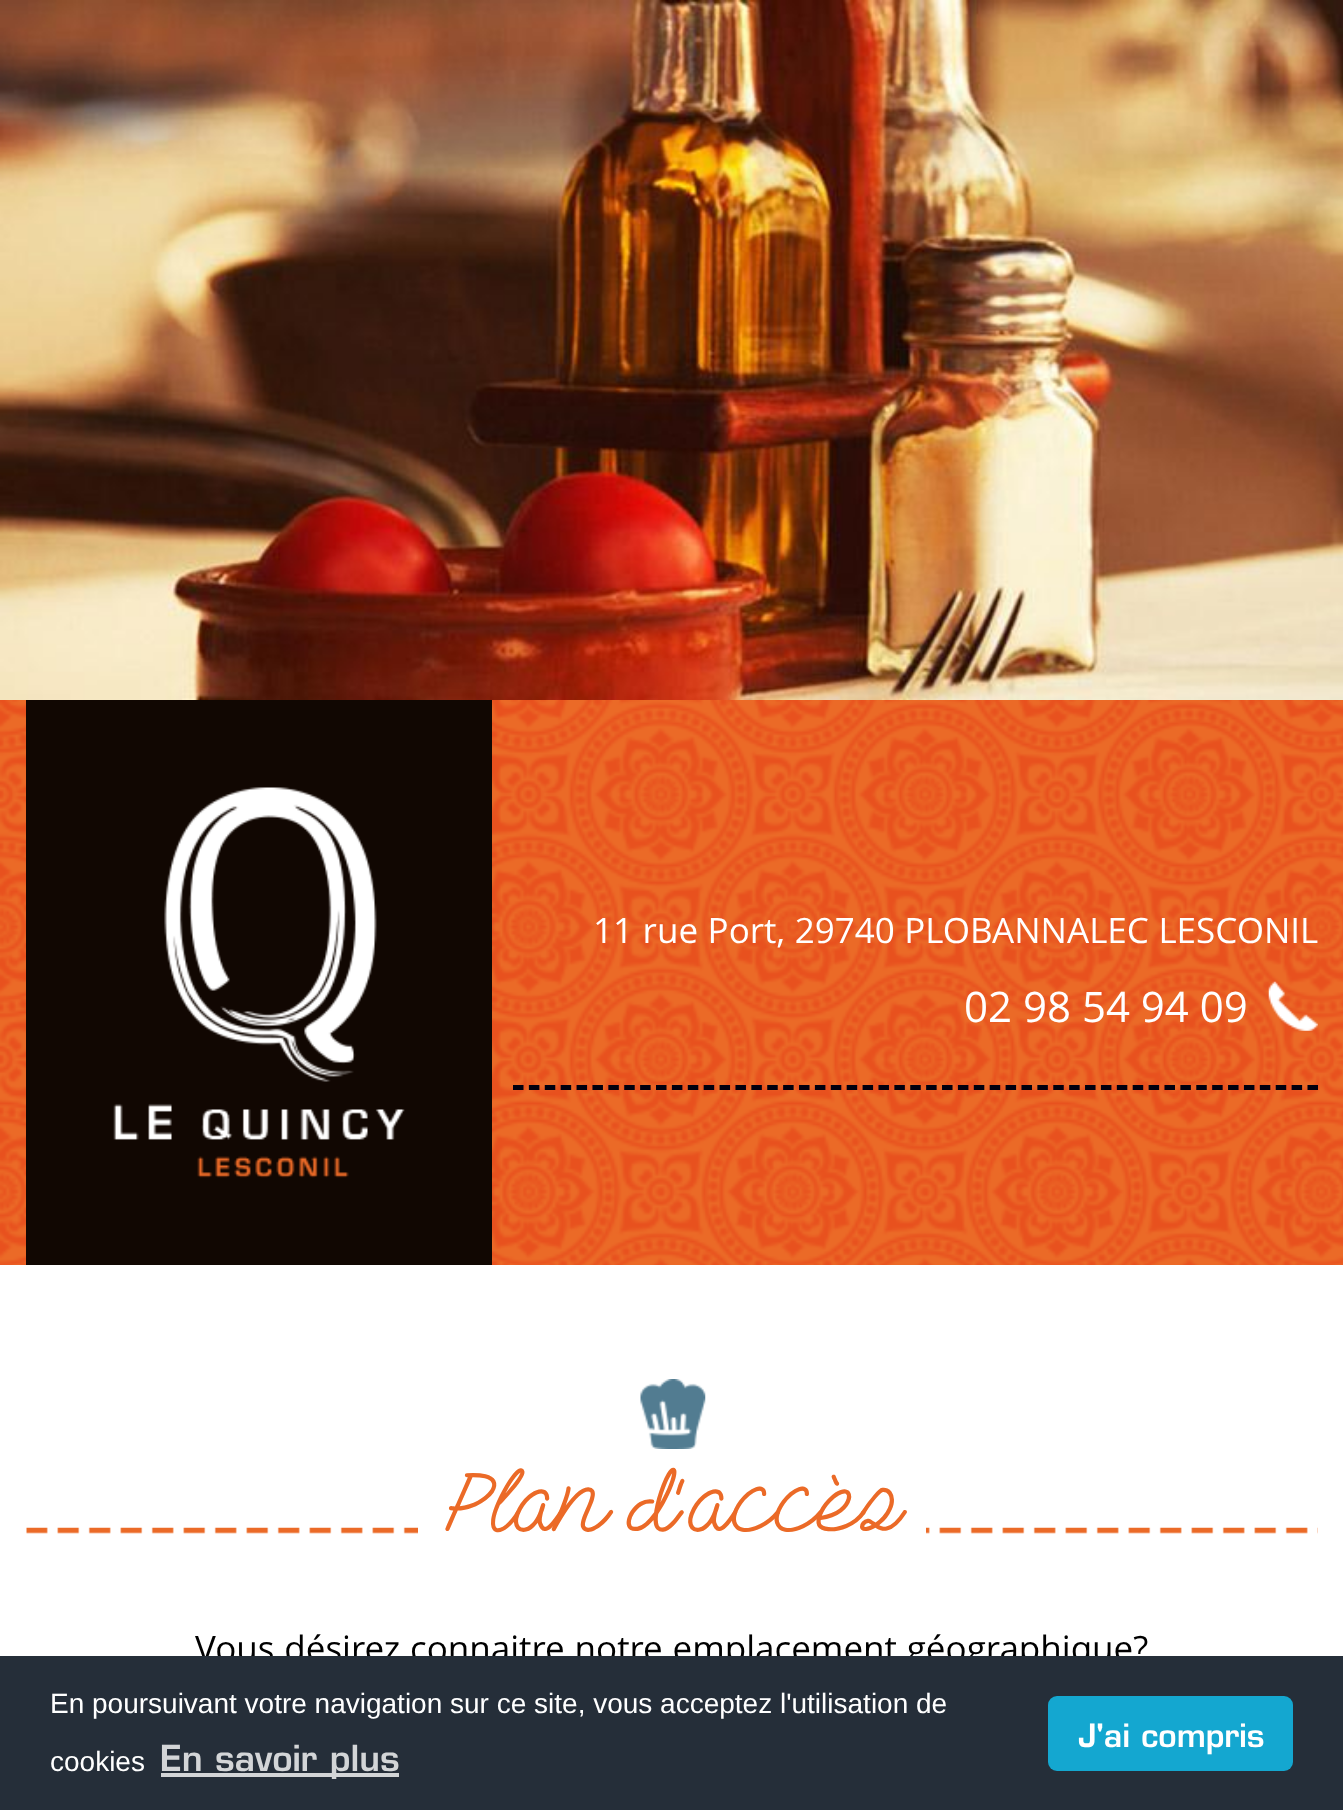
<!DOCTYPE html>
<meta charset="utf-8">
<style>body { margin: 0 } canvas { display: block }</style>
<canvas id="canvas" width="1343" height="1810"></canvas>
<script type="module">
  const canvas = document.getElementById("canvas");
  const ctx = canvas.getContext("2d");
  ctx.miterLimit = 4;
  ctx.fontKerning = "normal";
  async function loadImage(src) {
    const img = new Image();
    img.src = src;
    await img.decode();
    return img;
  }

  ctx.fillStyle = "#ffffff";
  ctx.fillRect(0, 0, 1343, 1810);
  ctx.drawImage(await loadImage("img1.png"), 0, 0, 1343, 700);
  ctx.drawImage(await loadImage("img2.png"), 0, 700, 1343, 565);
  ctx.fillStyle = "#110702";
  ctx.fillRect(26, 700, 466, 565);
  ctx.drawImage(await loadImage("img3.png"), 113, 787, 292, 391);
  ctx.beginPath();
  ctx.moveTo(513, 1087.5);
  ctx.lineTo(1318, 1087.5);
  ctx.strokeStyle = "#01000f";
  ctx.lineWidth = 5.2;
  ctx.setLineDash([10.5, 5.39]);
  ctx.stroke();
  ctx.wordSpacing = "0.5px";
  ctx.font = "35px Open Sans";
  ctx.fillStyle = "#ffffff";
  ctx.fillText("11 rue Port, 29740 PLOBANNALEC LESCONIL", 593, 943);
  ctx.drawImage(await loadImage("img4.png"), 1268, 981, 50, 50);
  ctx.wordSpacing = "0px";
  ctx.font = "42px Open Sans";
  ctx.fillText("02 98 54 94 09", 964, 1022);
  ctx.drawImage(await loadImage("img5.png"), 26, 1527, 1292, 7);
  ctx.fillRect(418, 1527, 508, 7);
  ctx.drawImage(await loadImage("img6.png"), 640, 1379, 66, 70);
  ctx.font = "84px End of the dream";
  ctx.fillStyle = "#eb6a27";
  ctx.fillText("Plan d'accès", 445, 1531);
  ctx.wordSpacing = "0.75px";
  ctx.font = "35px Open Sans";
  ctx.fillStyle = "#000000";
  ctx.fillText("Vous désirez connaitre notre emplacement géographique?", 195, 1661);
  ctx.fillStyle = "#252e39";
  ctx.fillRect(0, 1656, 1343, 154);
  ctx.wordSpacing = "0px";
  ctx.font = "28px Liberation Sans";
  ctx.fillStyle = "#ffffff";
  ctx.fillText("En poursuivant votre navigation sur ce site, vous acceptez l'utilisation de", 50, 1713);
  ctx.fillText("cookies", 50, 1771);
  ctx.fillStyle = "#d3d5d7";
  ctx.fillRect(161, 1773, 238, 4);
  ctx.font = "600 35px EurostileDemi";
  ctx.fillText("En savoir plus", 160, 1771);
  ctx.fillStyle = "#14a7d0";
  ctx.beginPath();
  ctx.roundRect(1048, 1696, 245, 75, 9);
  ctx.fill();
  ctx.font = "600 31.5px EurostileDemi";
  ctx.fillStyle = "#ffffff";
  ctx.fillText("J'ai compris", 1078, 1747);
</script>
